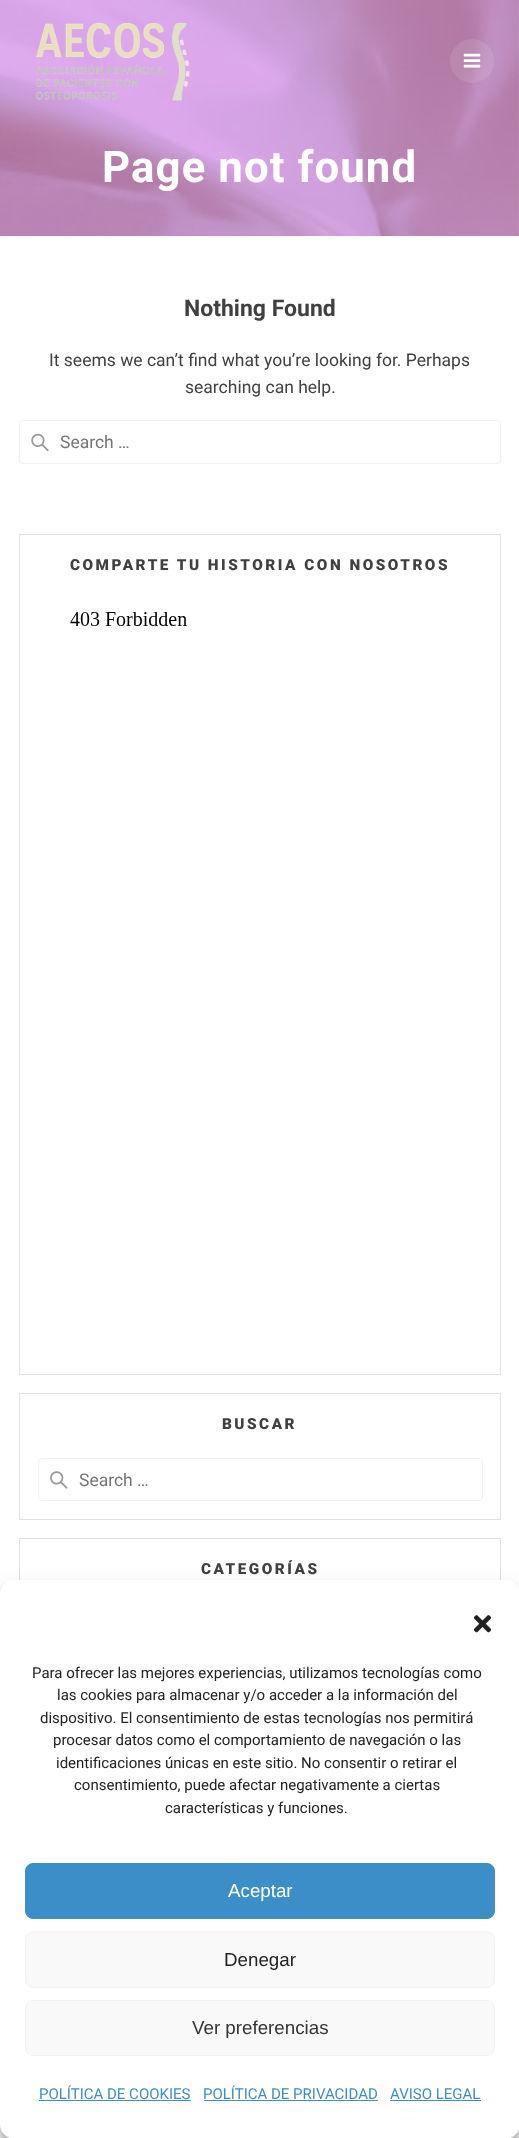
<!DOCTYPE html>
<meta charset="utf-8">
<style>body { margin: 0 } canvas { display: block }</style>
<canvas id="canvas" width="519" height="2138"></canvas>
<script type="module">
  const canvas = document.getElementById("canvas");
  const ctx = canvas.getContext("2d");
  ctx.miterLimit = 4;
  ctx.fontKerning = "normal";
  async function loadImage(src) {
    const img = new Image();
    img.src = src;
    await img.decode();
    return img;
  }

  ctx.fillStyle = "#ffffff";
  ctx.fillRect(0, 0, 519, 2138);
  ctx.drawImage(await loadImage("img3.png"), 0, 0, 519, 236);
  ctx.drawImage(await loadImage("img1.png"), 36, 22, 154, 79);
  ctx.fillStyle = "rgba(255, 255, 255, 0.1)";
  ctx.beginPath();
  ctx.arc(472, 61, 22, 0, Math.PI * 2);
  ctx.fill();
  ctx.drawImage(await loadImage("img2.png"), 463, 53, 18, 15);
  ctx.letterSpacing = "1.1px";
  ctx.font = "bold 43.75px Roboto";
  ctx.fillStyle = "#ffffff";
  ctx.fillText("Page not found", 102, 182);
  ctx.letterSpacing = "0px";
  ctx.font = "bold 23px Roboto";
  ctx.fillStyle = "#404040";
  ctx.fillText("Nothing Found", 184, 316);
  ctx.font = "17.5px Roboto";
  ctx.fillText("It seems we can’t find what you’re looking for. Perhaps", 49, 366);
  ctx.fillText("searching can help.", 185, 393);
  ctx.drawImage(await loadImage("img4.png"), 31, 433, 18, 19);
  ctx.beginPath();
  ctx.roundRect(19.5, 420.5, 481, 43, 3.5);
  ctx.strokeStyle = "#f1f1f1";
  ctx.stroke();
  ctx.fillStyle = "#757575";
  ctx.fillText("Search …", 60, 448);
  ctx.strokeStyle = "#e0e1e1";
  ctx.strokeRect(19.5, 534.5, 481, 840);
  ctx.letterSpacing = "2.5px";
  ctx.font = "900 15.3px Roboto";
  ctx.fillStyle = "#404040";
  ctx.fillText("COMPARTE TU HISTORIA CON NOSOTROS", 70, 570);
  ctx.drawImage(await loadImage("img5.png"), 70, 612, 117, 14);
  ctx.strokeRect(19.5, 1393.5, 481, 126);
  ctx.fillText("BUSCAR", 222, 1429);
  ctx.drawImage(await loadImage("img6.png"), 50, 1471, 18, 18);
  ctx.beginPath();
  ctx.roundRect(38.5, 1458.5, 444, 42, 3.5);
  ctx.strokeStyle = "#f1f1f1";
  ctx.stroke();
  ctx.letterSpacing = "0px";
  ctx.font = "17.5px Roboto";
  ctx.fillStyle = "#757575";
  ctx.fillText("Search …", 79, 1486);
  ctx.strokeStyle = "#e0e1e1";
  ctx.strokeRect(19.5, 1538.5, 481, 462);
  ctx.letterSpacing = "2.5px";
  ctx.font = "900 15.3px Roboto";
  ctx.fillStyle = "#404040";
  ctx.fillText("CATEGORÍAS", 201, 1574);
  ctx.fillStyle = "rgba(0, 0, 0, 0.23)";
  ctx.filter = "blur(4px)";
  ctx.beginPath();
  ctx.roundRect(0, 1588, 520, 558, 15);
  ctx.fill();
  ctx.filter = "none";
  ctx.fillStyle = "rgba(0, 0, 0, 0.19)";
  ctx.filter = "blur(12.5px)";
  ctx.beginPath();
  ctx.roundRect(0, 1593, 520, 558, 15);
  ctx.fill();
  ctx.filter = "none";
  ctx.fillStyle = "#ffffff";
  ctx.beginPath();
  ctx.roundRect(0, 1580, 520, 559, 15);
  ctx.fill();
  ctx.drawImage(await loadImage("img7.png"), 473, 1615, 19, 18);
  ctx.letterSpacing = "0px";
  ctx.font = "15px Roboto";
  ctx.fillStyle = "#222222";
  ctx.fillText("Para ofrecer las mejores experiencias, utilizamos tecnologías como", 32, 1678);
  ctx.fillText("las cookies para almacenar y/o acceder a la información del", 57, 1700);
  ctx.fillText("dispositivo. El consentimiento de estas tecnologías nos permitirá", 40, 1723);
  ctx.fillText("procesar datos como el comportamiento de navegación o las", 53, 1745);
  ctx.fillText("identificaciones únicas en este sitio. No consentir o retirar el", 56, 1768);
  ctx.fillText("consentimiento, puede afectar negativamente a ciertas", 74, 1790);
  ctx.fillText("características y funciones.", 165, 1813);
  ctx.fillStyle = "#3b8ec7";
  ctx.beginPath();
  ctx.roundRect(25.5, 1863.5, 469, 55, 7.5);
  ctx.fill();
  ctx.strokeStyle = "#3b8ec7";
  ctx.stroke();
  ctx.font = "18.75px Liberation Sans";
  ctx.fillStyle = "#ffffff";
  ctx.fillText("Aceptar", 228, 1897);
  ctx.fillStyle = "#f9f9f9";
  ctx.beginPath();
  ctx.roundRect(25.5, 1931.5, 469, 56, 7.5);
  ctx.fill();
  ctx.strokeStyle = "#f2f2f2";
  ctx.stroke();
  ctx.fillStyle = "#222222";
  ctx.fillText("Denegar", 224, 1966);
  ctx.fillStyle = "#f9f9f9";
  ctx.beginPath();
  ctx.roundRect(25.5, 2000.5, 469, 55, 7.5);
  ctx.fill();
  ctx.stroke();
  ctx.fillStyle = "#333333";
  ctx.fillText("Ver preferencias", 192, 2034);
  ctx.font = "15px Roboto";
  ctx.fillStyle = "#3b8ec7";
  ctx.fillText("POLÍTICA DE COOKIES", 39, 2099);
  ctx.fillRect(39, 2100, 152, 1);
  ctx.fillText("POLÍTICA DE PRIVACIDAD", 203, 2099);
  ctx.fillRect(204, 2100, 174, 1);
  ctx.fillText("AVISO LEGAL", 390, 2099);
  ctx.fillRect(390, 2100, 91, 1);
</script>
